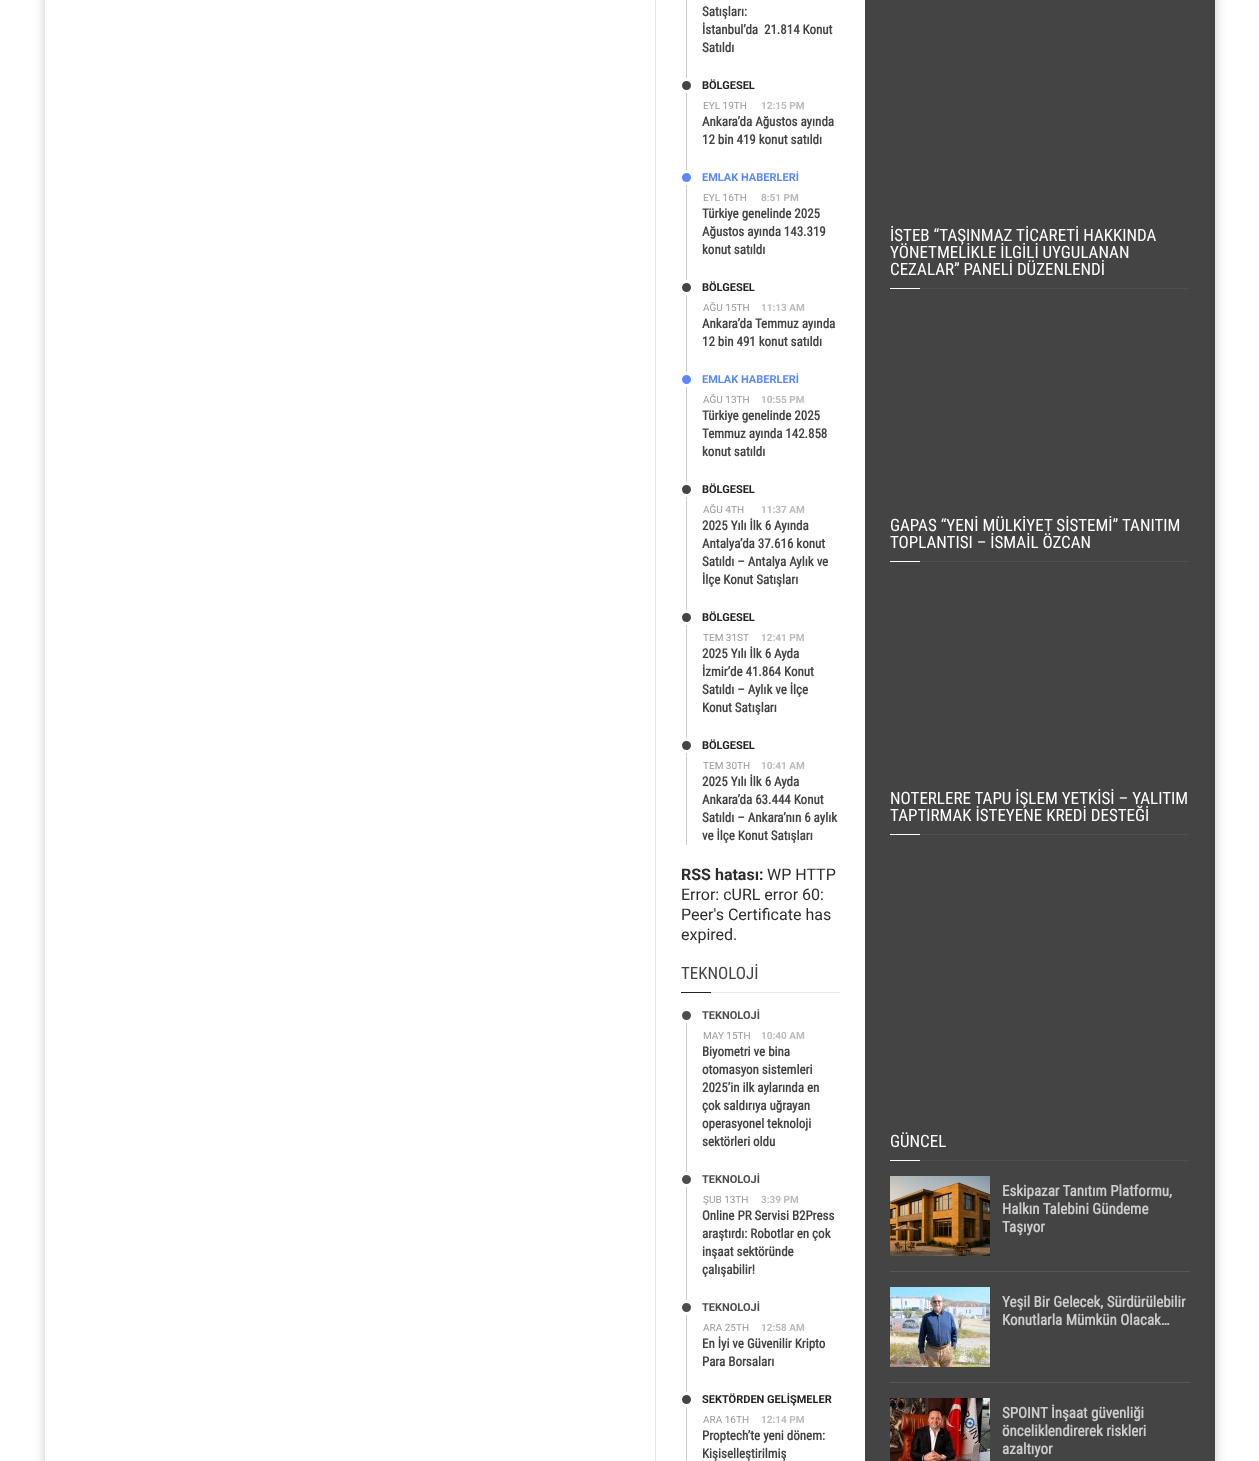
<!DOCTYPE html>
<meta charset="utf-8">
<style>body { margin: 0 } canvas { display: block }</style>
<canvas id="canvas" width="1259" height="1461"></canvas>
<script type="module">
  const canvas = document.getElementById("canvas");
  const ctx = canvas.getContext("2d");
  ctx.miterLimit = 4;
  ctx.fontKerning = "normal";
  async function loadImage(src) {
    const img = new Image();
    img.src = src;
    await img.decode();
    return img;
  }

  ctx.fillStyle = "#ffffff";
  ctx.fillRect(0, 0, 1259, 1461);
  ctx.save();
  ctx.beginPath();
  ctx.moveTo(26, 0);
  ctx.lineTo(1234, 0);
  ctx.lineTo(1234, 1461);
  ctx.lineTo(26, 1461);
  ctx.closePath();
  ctx.moveTo(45, -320);
  ctx.lineTo(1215, -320);
  ctx.lineTo(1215, 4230);
  ctx.lineTo(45, 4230);
  ctx.closePath();
  ctx.clip("evenodd");
  ctx.fillStyle = "#cccccc";
  ctx.filter = "blur(6px)";
  ctx.beginPath();
  ctx.rect(45, -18, 1170, 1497);
  ctx.fill();
  ctx.filter = "none";
  ctx.restore();
  ctx.fillStyle = "#e3e3e3";
  ctx.fillRect(655, 0, 1, 1461);
  ctx.fillStyle = "#cbcbcb";
  ctx.fillRect(686, 0, 1, 845);
  ctx.font = "bold 13px Roboto Condensed";
  ctx.fillStyle = "#444444";
  ctx.fillText("Satışları:", 702, 16);
  ctx.fillText("İstanbul’da  21.814 Konut", 702, 34);
  ctx.fillText("Satıldı", 702, 52);
  ctx.beginPath();
  ctx.arc(686.5, 85.5, 6, 0, Math.PI * 2);
  ctx.fill();
  ctx.strokeStyle = "#ffffff";
  ctx.lineWidth = 3;
  ctx.stroke();
  ctx.font = "bold 11px Roboto";
  ctx.fillStyle = "#222222";
  ctx.fillText("BÖLGESEL", 702, 89);
  ctx.font = "bold 13px Roboto Condensed";
  ctx.fillStyle = "#444444";
  ctx.fillText("Ankara’da Ağustos ayında", 702, 126);
  ctx.fillText("12 bin 419 konut satıldı", 702, 144);
  ctx.font = "10px Roboto";
  ctx.fillStyle = "#999999";
  ctx.fillText("EYL 19TH", 703, 109);
  ctx.font = "bold 10px Roboto";
  ctx.fillStyle = "#bbbbbb";
  ctx.fillText("12:15 PM", 761, 109);
  ctx.fillStyle = "#5b87ff";
  ctx.beginPath();
  ctx.arc(686.5, 177.5, 6, 0, Math.PI * 2);
  ctx.fill();
  ctx.stroke();
  ctx.font = "bold 11px Roboto";
  ctx.fillText("EMLAK HABERLERİ", 702, 181);
  ctx.font = "bold 13px Roboto Condensed";
  ctx.fillStyle = "#444444";
  ctx.fillText("Türkiye genelinde 2025", 702, 218);
  ctx.fillText("Ağustos ayında 143.319", 702, 236);
  ctx.fillText("konut satıldı", 702, 254);
  ctx.font = "10px Roboto";
  ctx.fillStyle = "#999999";
  ctx.fillText("EYL 16TH", 703, 201);
  ctx.font = "bold 10px Roboto";
  ctx.fillStyle = "#bbbbbb";
  ctx.fillText("8:51 PM", 761, 201);
  ctx.fillStyle = "#444444";
  ctx.beginPath();
  ctx.arc(686.5, 287.5, 6, 0, Math.PI * 2);
  ctx.fill();
  ctx.stroke();
  ctx.font = "bold 11px Roboto";
  ctx.fillStyle = "#222222";
  ctx.fillText("BÖLGESEL", 702, 291);
  ctx.font = "bold 13px Roboto Condensed";
  ctx.fillStyle = "#444444";
  ctx.fillText("Ankara’da Temmuz ayında", 702, 328);
  ctx.fillText("12 bin 491 konut satıldı", 702, 346);
  ctx.font = "10px Roboto";
  ctx.fillStyle = "#999999";
  ctx.fillText("AĞU 15TH", 703, 311);
  ctx.font = "bold 10px Roboto";
  ctx.fillStyle = "#bbbbbb";
  ctx.fillText("11:13 AM", 761, 311);
  ctx.fillStyle = "#5b87ff";
  ctx.beginPath();
  ctx.arc(686.5, 379.5, 6, 0, Math.PI * 2);
  ctx.fill();
  ctx.stroke();
  ctx.font = "bold 11px Roboto";
  ctx.fillText("EMLAK HABERLERİ", 702, 383);
  ctx.font = "bold 13px Roboto Condensed";
  ctx.fillStyle = "#444444";
  ctx.fillText("Türkiye genelinde 2025", 702, 420);
  ctx.fillText("Temmuz ayında 142.858", 702, 438);
  ctx.fillText("konut satıldı", 702, 456);
  ctx.font = "10px Roboto";
  ctx.fillStyle = "#999999";
  ctx.fillText("AĞU 13TH", 703, 403);
  ctx.font = "bold 10px Roboto";
  ctx.fillStyle = "#bbbbbb";
  ctx.fillText("10:55 PM", 761, 403);
  ctx.fillStyle = "#444444";
  ctx.beginPath();
  ctx.arc(686.5, 489.5, 6, 0, Math.PI * 2);
  ctx.fill();
  ctx.stroke();
  ctx.font = "bold 11px Roboto";
  ctx.fillStyle = "#222222";
  ctx.fillText("BÖLGESEL", 702, 493);
  ctx.font = "bold 13px Roboto Condensed";
  ctx.fillStyle = "#444444";
  ctx.fillText("2025 Yılı İlk 6 Ayında", 702, 530);
  ctx.fillText("Antalya’da 37.616 konut", 702, 548);
  ctx.fillText("Satıldı – Antalya Aylık ve", 702, 566);
  ctx.fillText("İlçe Konut Satışları", 702, 584);
  ctx.font = "10px Roboto";
  ctx.fillStyle = "#999999";
  ctx.fillText("AĞU 4TH", 703, 513);
  ctx.font = "bold 10px Roboto";
  ctx.fillStyle = "#bbbbbb";
  ctx.fillText("11:37 AM", 761, 513);
  ctx.fillStyle = "#444444";
  ctx.beginPath();
  ctx.arc(686.5, 617.5, 6, 0, Math.PI * 2);
  ctx.fill();
  ctx.stroke();
  ctx.font = "bold 11px Roboto";
  ctx.fillStyle = "#222222";
  ctx.fillText("BÖLGESEL", 702, 621);
  ctx.font = "bold 13px Roboto Condensed";
  ctx.fillStyle = "#444444";
  ctx.fillText("2025 Yılı İlk 6 Ayda", 702, 658);
  ctx.fillText("İzmir’de 41.864 Konut", 702, 676);
  ctx.fillText("Satıldı – Aylık ve İlçe", 702, 694);
  ctx.fillText("Konut Satışları", 702, 712);
  ctx.font = "10px Roboto";
  ctx.fillStyle = "#999999";
  ctx.fillText("TEM 31ST", 703, 641);
  ctx.font = "bold 10px Roboto";
  ctx.fillStyle = "#bbbbbb";
  ctx.fillText("12:41 PM", 761, 641);
  ctx.fillStyle = "#444444";
  ctx.beginPath();
  ctx.arc(686.5, 745.5, 6, 0, Math.PI * 2);
  ctx.fill();
  ctx.stroke();
  ctx.font = "bold 11px Roboto";
  ctx.fillStyle = "#222222";
  ctx.fillText("BÖLGESEL", 702, 749);
  ctx.font = "bold 13px Roboto Condensed";
  ctx.fillStyle = "#444444";
  ctx.fillText("2025 Yılı İlk 6 Ayda", 702, 786);
  ctx.fillText("Ankara’da 63.444 Konut", 702, 804);
  ctx.fillText("Satıldı – Ankara’nın 6 aylık", 702, 822);
  ctx.fillText("ve İlçe Konut Satışları", 702, 840);
  ctx.font = "10px Roboto";
  ctx.fillStyle = "#999999";
  ctx.fillText("TEM 30TH", 703, 769);
  ctx.font = "bold 10px Roboto";
  ctx.fillStyle = "#bbbbbb";
  ctx.fillText("10:41 AM", 761, 769);
  ctx.font = "bold 16px Roboto";
  ctx.fillStyle = "#2d2d2d";
  ctx.fillText("RSS hatası:", 681, 880);
  ctx.font = "16px Roboto";
  ctx.fillText("WP HTTP", 767, 880);
  ctx.fillText("Error: cURL error 60:", 681, 900);
  ctx.fillText("Peer's Certificate has", 681, 920);
  ctx.fillText("expired.", 681, 940);
  ctx.fillStyle = "#e8e8e8";
  ctx.fillRect(711, 992, 129, 1);
  ctx.font = "17px Roboto Condensed";
  ctx.fillStyle = "#444444";
  ctx.fillText("TEKNOLOJİ", 681, 979);
  ctx.fillStyle = "#222222";
  ctx.fillRect(681, 992, 30, 1);
  ctx.fillStyle = "#cbcbcb";
  ctx.fillRect(686, 1008, 1, 453);
  ctx.fillStyle = "#4d4d4d";
  ctx.beginPath();
  ctx.arc(686.5, 1015.5, 6, 0, Math.PI * 2);
  ctx.fill();
  ctx.stroke();
  ctx.font = "bold 11px Roboto";
  ctx.fillText("TEKNOLOJİ", 702, 1019);
  ctx.font = "bold 13px Roboto Condensed";
  ctx.fillStyle = "#444444";
  ctx.fillText("Biyometri ve bina", 702, 1056);
  ctx.fillText("otomasyon sistemleri", 702, 1074);
  ctx.fillText("2025’in ilk aylarında en", 702, 1092);
  ctx.fillText("çok saldırıya uğrayan", 702, 1110);
  ctx.fillText("operasyonel teknoloji", 702, 1128);
  ctx.fillText("sektörleri oldu", 702, 1146);
  ctx.font = "10px Roboto";
  ctx.fillStyle = "#999999";
  ctx.fillText("MAY 15TH", 703, 1039);
  ctx.font = "bold 10px Roboto";
  ctx.fillStyle = "#bbbbbb";
  ctx.fillText("10:40 AM", 761, 1039);
  ctx.fillStyle = "#4d4d4d";
  ctx.beginPath();
  ctx.arc(686.5, 1179.5, 6, 0, Math.PI * 2);
  ctx.fill();
  ctx.stroke();
  ctx.font = "bold 11px Roboto";
  ctx.fillText("TEKNOLOJİ", 702, 1183);
  ctx.font = "bold 13px Roboto Condensed";
  ctx.fillStyle = "#444444";
  ctx.fillText("Online PR Servisi B2Press", 702, 1220);
  ctx.fillText("araştırdı: Robotlar en çok", 702, 1238);
  ctx.fillText("inşaat sektöründe", 702, 1256);
  ctx.fillText("çalışabilir!", 702, 1274);
  ctx.font = "10px Roboto";
  ctx.fillStyle = "#999999";
  ctx.fillText("ŞUB 13TH", 703, 1203);
  ctx.font = "bold 10px Roboto";
  ctx.fillStyle = "#bbbbbb";
  ctx.fillText("3:39 PM", 761, 1203);
  ctx.fillStyle = "#4d4d4d";
  ctx.beginPath();
  ctx.arc(686.5, 1307.5, 6, 0, Math.PI * 2);
  ctx.fill();
  ctx.stroke();
  ctx.font = "bold 11px Roboto";
  ctx.fillText("TEKNOLOJİ", 702, 1311);
  ctx.font = "bold 13px Roboto Condensed";
  ctx.fillStyle = "#444444";
  ctx.fillText("En İyi ve Güvenilir Kripto", 702, 1348);
  ctx.fillText("Para Borsaları", 702, 1366);
  ctx.font = "10px Roboto";
  ctx.fillStyle = "#999999";
  ctx.fillText("ARA 25TH", 703, 1331);
  ctx.font = "bold 10px Roboto";
  ctx.fillStyle = "#bbbbbb";
  ctx.fillText("12:58 AM", 761, 1331);
  ctx.fillStyle = "#444444";
  ctx.beginPath();
  ctx.arc(686.5, 1399.5, 6, 0, Math.PI * 2);
  ctx.fill();
  ctx.stroke();
  ctx.font = "bold 11px Roboto";
  ctx.fillStyle = "#222222";
  ctx.fillText("SEKTÖRDEN GELİŞMELER", 702, 1403);
  ctx.font = "bold 13px Roboto Condensed";
  ctx.fillStyle = "#444444";
  ctx.fillText("Proptech’te yeni dönem:", 702, 1440);
  ctx.fillText("Kişiselleştirilmiş", 702, 1458);
  ctx.font = "10px Roboto";
  ctx.fillStyle = "#999999";
  ctx.fillText("ARA 16TH", 703, 1423);
  ctx.font = "bold 10px Roboto";
  ctx.fillStyle = "#bbbbbb";
  ctx.fillText("12:14 PM", 761, 1423);
  ctx.fillStyle = "#444444";
  ctx.fillRect(865, 0, 350, 1461);
  ctx.fillStyle = "#4e4e4e";
  ctx.fillRect(920, 288, 270, 1);
  ctx.font = "17px Roboto Condensed";
  ctx.fillStyle = "#ffffff";
  ctx.fillText("İSTEB “TAŞINMAZ TİCARETİ HAKKINDA", 890, 241);
  ctx.fillText("YÖNETMELİKLE İLGİLİ UYGULANAN", 890, 258);
  ctx.fillText("CEZALAR” PANELİ DÜZENLENDİ", 890, 275);
  ctx.fillRect(890, 288, 30, 1);
  ctx.fillStyle = "#4e4e4e";
  ctx.fillRect(920, 561, 270, 1);
  ctx.fillStyle = "#ffffff";
  ctx.fillText("GAPAS “YENİ MÜLKİYET SİSTEMİ” TANITIM", 890, 531);
  ctx.fillText("TOPLANTISI – İSMAİL ÖZCAN", 890, 548);
  ctx.fillRect(890, 561, 30, 1);
  ctx.fillStyle = "#4e4e4e";
  ctx.fillRect(920, 834, 270, 1);
  ctx.fillStyle = "#ffffff";
  ctx.fillText("NOTERLERE TAPU İŞLEM YETKİSİ – YALITIM", 890, 804);
  ctx.fillText("TAPTIRMAK İSTEYENE KREDİ DESTEĞİ", 890, 821);
  ctx.fillRect(890, 834, 30, 1);
  ctx.fillStyle = "#4e4e4e";
  ctx.fillRect(920, 1160, 270, 1);
  ctx.fillStyle = "#ffffff";
  ctx.fillText("GÜNCEL", 890, 1147);
  ctx.fillRect(890, 1160, 30, 1);
  ctx.drawImage(await loadImage("img1.png"), 890, 1176, 100, 80);
  ctx.font = "bold 15px Roboto Condensed";
  ctx.fillStyle = "#cccccc";
  ctx.fillText("Eskipazar Tanıtım Platformu,", 1002, 1196);
  ctx.fillText("Halkın Talebini Gündeme", 1002, 1214);
  ctx.fillText("Taşıyor", 1002, 1232);
  ctx.fillStyle = "#575757";
  ctx.fillRect(890, 1271, 300, 1);
  ctx.drawImage(await loadImage("img2.png"), 890, 1287, 100, 80);
  ctx.fillStyle = "#cccccc";
  ctx.fillText("Yeşil Bir Gelecek, Sürdürülebilir", 1002, 1307);
  ctx.fillText("Konutlarla Mümkün Olacak…", 1002, 1325);
  ctx.fillStyle = "#575757";
  ctx.fillRect(890, 1382, 300, 1);
  ctx.drawImage(await loadImage("img3.png"), 890, 1398, 100, 63);
  ctx.fillStyle = "#cccccc";
  ctx.fillText("SPOINT İnşaat güvenliği", 1002, 1418);
  ctx.fillText("önceliklendirerek riskleri", 1002, 1436);
  ctx.fillText("azaltıyor", 1002, 1454);
</script>
